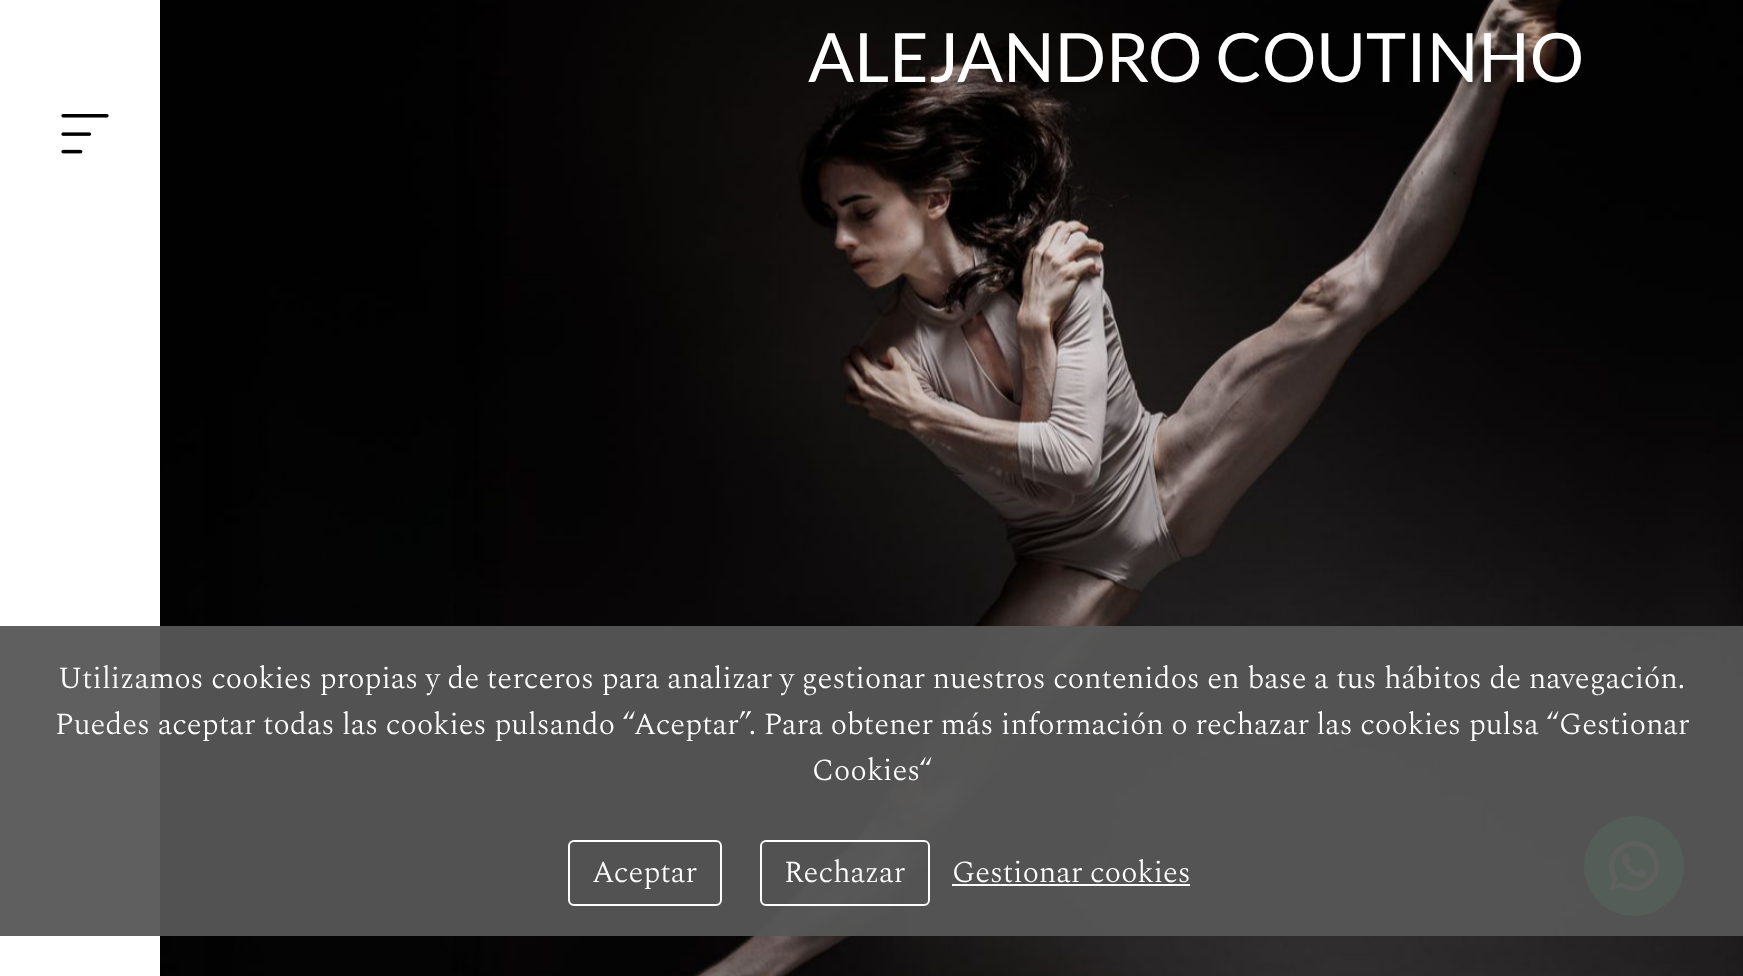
<!DOCTYPE html>
<meta charset="utf-8">
<style>body { margin: 0 } canvas { display: block }</style>
<canvas id="canvas" width="1743" height="976"></canvas>
<script type="module">
  const canvas = document.getElementById("canvas");
  const ctx = canvas.getContext("2d");
  ctx.miterLimit = 4;
  ctx.fontKerning = "normal";
  async function loadImage(src) {
    const img = new Image();
    img.src = src;
    await img.decode();
    return img;
  }

  ctx.fillStyle = "#ffffff";
  ctx.fillRect(0, 0, 1743, 976);
  ctx.drawImage(await loadImage("img1.png"), 160, 0, 1583, 976);
  ctx.font = "68px Lato";
  ctx.fillText("ALEJANDRO COUTINHO", 808, 82);
  ctx.drawImage(await loadImage("img2.png"), 61, 114, 48, 40);
  ctx.fillStyle = "#25d366";
  ctx.beginPath();
  ctx.arc(1634, 866, 50, 0, Math.PI * 2);
  ctx.fill();
  ctx.drawImage(await loadImage("img3.png"), 1609, 841, 50, 50);
  ctx.fillStyle = "rgba(86, 86, 86, 0.95)";
  ctx.fillRect(0, 626, 1743, 310);
  ctx.font = "300 30.6px Spectral";
  ctx.fillStyle = "#ffffff";
  ctx.fillText("Utilizamos cookies propias y de terceros para analizar y gestionar nuestros contenidos en base a tus hábitos de navegación.", 58, 688);
  ctx.fillText("Puedes aceptar todas las cookies pulsando “Aceptar”. Para obtener más información o rechazar las cookies pulsa “Gestionar", 55, 734);
  ctx.fillText("Cookies“", 812, 780);
  ctx.beginPath();
  ctx.roundRect(569, 841, 152, 64, 5);
  ctx.strokeStyle = "#ffffff";
  ctx.lineWidth = 2;
  ctx.stroke();
  ctx.fillText("Aceptar", 592, 882);
  ctx.beginPath();
  ctx.roundRect(761, 841, 168, 64, 5);
  ctx.stroke();
  ctx.fillText("Rechazar", 784, 882);
  ctx.fillText("Gestionar cookies", 952, 882);
  ctx.fillRect(952, 884, 238, 2);
</script>
